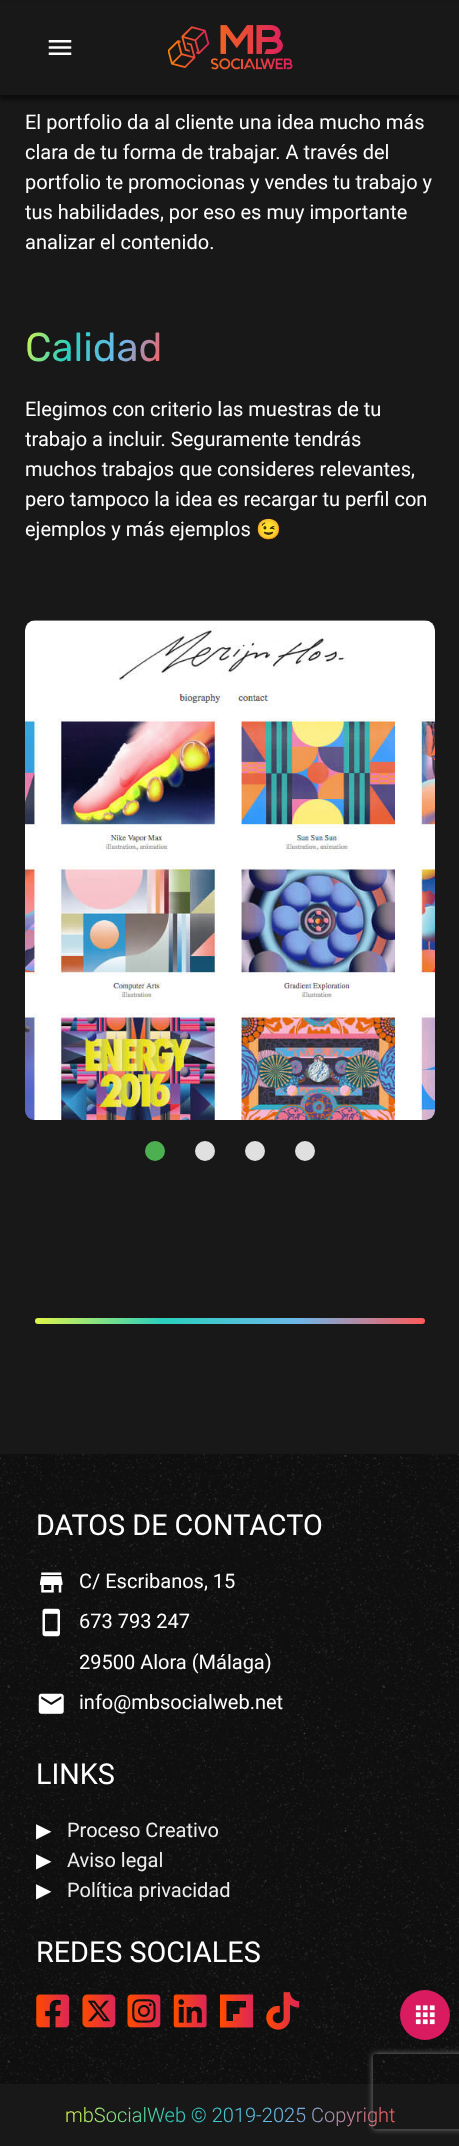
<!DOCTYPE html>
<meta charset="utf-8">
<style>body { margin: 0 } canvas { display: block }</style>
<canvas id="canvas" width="459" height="2146"></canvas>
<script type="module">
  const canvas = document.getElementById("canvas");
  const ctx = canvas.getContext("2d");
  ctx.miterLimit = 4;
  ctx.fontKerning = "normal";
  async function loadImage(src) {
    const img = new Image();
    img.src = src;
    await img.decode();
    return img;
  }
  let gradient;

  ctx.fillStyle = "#181818";
  ctx.fillRect(0, 0, 459, 2146);
  ctx.fillStyle = "rgba(0, 0, 0, 0.5)";
  ctx.filter = "blur(2px)";
  ctx.beginPath();
  ctx.rect(0, 5, 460, 95);
  ctx.fill();
  ctx.filter = "none";
  ctx.fillStyle = "#181818";
  ctx.fillRect(0, 3, 459, 92);
  ctx.drawImage(await loadImage("img1.png"), 48, 40, 24, 15);
  ctx.drawImage(await loadImage("img2.png"), 168, 25, 125, 45);
  ctx.font = "20px Roboto";
  ctx.fillStyle = "#ffffff";
  ctx.fillText("El portfolio da al cliente una idea mucho más", 25, 129);
  ctx.fillText("clara de tu forma de trabajar. A través del", 25, 159);
  ctx.fillText("portfolio te promocionas y vendes tu trabajo y", 25, 189);
  ctx.fillText("tus habilidades, por eso es muy importante", 25, 219);
  ctx.fillText("analizar el contenido.", 25, 249);
  ctx.font = "40px Rubik";
  gradient = ctx.createLinearGradient(25, 323, 162, 372);
  gradient.addColorStop(0, "#e1f549");
  gradient.addColorStop(0.33, "#29d0be");
  gradient.addColorStop(0.67, "#6cb8ea");
  gradient.addColorStop(1, "#ff5959");
  ctx.fillStyle = gradient;
  ctx.fillText("Calidad", 25, 361);
  ctx.font = "20px Roboto";
  ctx.fillStyle = "#ffffff";
  ctx.fillText("Elegimos con criterio las muestras de tu", 25, 416);
  ctx.fillText("trabajo a incluir. Seguramente tendrás", 25, 446);
  ctx.fillText("muchos trabajos que consideres relevantes,", 25, 476);
  ctx.fillText("pero tampoco la idea es recargar tu perfil con", 25, 506);
  ctx.fillText("ejemplos y más ejemplos", 25, 536);
  ctx.font = "20px Noto Color Emoji";
  ctx.fillText("😉", 256, 536);
  ctx.drawImage(await loadImage("img3.png"), 25, 620, 410, 500);
  ctx.fillStyle = "#4caf50";
  ctx.beginPath();
  ctx.arc(155, 1151, 10, 0, Math.PI * 2);
  ctx.fill();
  ctx.fillStyle = "#e0e0e0";
  ctx.beginPath();
  ctx.arc(205, 1151, 10, 0, Math.PI * 2);
  ctx.fill();
  ctx.beginPath();
  ctx.arc(255, 1151, 10, 0, Math.PI * 2);
  ctx.fill();
  ctx.beginPath();
  ctx.arc(305, 1151, 10, 0, Math.PI * 2);
  ctx.fill();
  gradient = ctx.createLinearGradient(57, 1258, 403, 1384);
  gradient.addColorStop(0, "#e1f549");
  gradient.addColorStop(0.33, "#29d0be");
  gradient.addColorStop(0.67, "#6cb8ea");
  gradient.addColorStop(1, "#ff5959");
  ctx.fillStyle = gradient;
  ctx.beginPath();
  ctx.roundRect(35, 1318, 390, 6, 3);
  ctx.fill();
  ctx.fillStyle = "#0f0f0f";
  ctx.fillRect(0, 1454, 459, 630);
  ctx.drawImage(await loadImage("img4.png"), 0, 1454, 459, 630);
  ctx.font = "28.75px Roboto";
  ctx.fillStyle = "#ffffff";
  ctx.fillText("DATOS DE CONTACTO", 36, 1535);
  ctx.drawImage(await loadImage("img5.png"), 40, 1572, 23, 21);
  ctx.font = "20px Roboto";
  ctx.fillText("C/ Escribanos, 15", 79, 1588);
  ctx.drawImage(await loadImage("img6.png"), 42, 1608, 18, 29);
  ctx.fillText("673 793 247", 79, 1628);
  ctx.fillText("29500 Alora (Málaga)", 79, 1669);
  ctx.drawImage(await loadImage("img7.png"), 38, 1693, 26, 21);
  ctx.fillText("info@mbsocialweb.net", 79, 1709);
  ctx.font = "28.75px Roboto";
  ctx.fillText("LINKS", 36, 1784);
  ctx.font = "20px DejaVu Sans";
  ctx.fillText("▶", 36, 1837);
  ctx.font = "20px Roboto";
  ctx.fillStyle = "#eeeeee";
  ctx.fillText("Proceso Creativo", 67, 1837);
  ctx.font = "20px DejaVu Sans";
  ctx.fillStyle = "#ffffff";
  ctx.fillText("▶", 36, 1867);
  ctx.font = "20px Roboto";
  ctx.fillStyle = "#eeeeee";
  ctx.fillText("Aviso legal", 67, 1867);
  ctx.font = "20px DejaVu Sans";
  ctx.fillStyle = "#ffffff";
  ctx.fillText("▶", 36, 1897);
  ctx.font = "20px Roboto";
  ctx.fillStyle = "#eeeeee";
  ctx.fillText("Política privacidad", 67, 1897);
  ctx.font = "28.75px Roboto";
  ctx.fillStyle = "#ffffff";
  ctx.fillText("REDES SOCIALES", 36, 1962);
  ctx.drawImage(await loadImage("img8.png"), 36, 1994, 34, 34);
  ctx.drawImage(await loadImage("img9.png"), 82, 1994, 34, 34);
  ctx.drawImage(await loadImage("img10.png"), 127, 1994, 34, 34);
  ctx.drawImage(await loadImage("img11.png"), 173, 1994, 34, 34);
  gradient = ctx.createLinearGradient(220, 2012, 253, 2012);
  gradient.addColorStop(0, "#ff4b00");
  gradient.addColorStop(1, "#de2657");
  ctx.fillStyle = gradient;
  ctx.beginPath();
  ctx.moveTo(220, 1994.5);
  ctx.lineTo(220, 2027.5);
  ctx.lineTo(253, 2027.5);
  ctx.lineTo(253, 1994.5);
  ctx.closePath();
  ctx.moveTo(246, 2007.5);
  ctx.lineTo(239.5, 2007.5);
  ctx.lineTo(239.5, 2014);
  ctx.lineTo(233, 2014);
  ctx.lineTo(233, 2021);
  ctx.lineTo(226.5, 2021);
  ctx.lineTo(226.5, 2001);
  ctx.lineTo(246, 2001);
  ctx.closePath();
  ctx.fill();
  ctx.drawImage(await loadImage("img12.png"), 266, 1992, 34, 38);
  ctx.font = "300 20px Roboto";
  gradient = ctx.createLinearGradient(80, 2060, 380, 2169);
  gradient.addColorStop(0, "#e1f549");
  gradient.addColorStop(0.33, "#29d0be");
  gradient.addColorStop(0.67, "#6cb8ea");
  gradient.addColorStop(1, "#ff5959");
  ctx.fillStyle = gradient;
  ctx.fillText("mbSocialWeb © 2019-2025 Copyright", 65, 2122);
  ctx.fillStyle = "#da1b60";
  ctx.beginPath();
  ctx.arc(425, 2015, 25, 0, Math.PI * 2);
  ctx.fill();
  ctx.drawImage(await loadImage("img13.png"), 415, 2005, 20, 20);
  ctx.save();
  ctx.beginPath();
  ctx.moveTo(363, 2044);
  ctx.lineTo(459, 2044);
  ctx.lineTo(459, 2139);
  ctx.lineTo(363, 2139);
  ctx.closePath();
  ctx.moveTo(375.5, 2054);
  ctx.lineTo(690.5, 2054);
  ctx.bezierCurveTo(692, 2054, 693, 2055, 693, 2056.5);
  ctx.lineTo(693, 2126.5);
  ctx.bezierCurveTo(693, 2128, 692, 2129, 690.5, 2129);
  ctx.lineTo(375.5, 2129);
  ctx.bezierCurveTo(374, 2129, 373, 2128, 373, 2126.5);
  ctx.lineTo(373, 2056.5);
  ctx.bezierCurveTo(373, 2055, 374, 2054, 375.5, 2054);
  ctx.closePath();
  ctx.clip("evenodd");
  ctx.fillStyle = "#808080";
  ctx.filter = "blur(3px)";
  ctx.beginPath();
  ctx.roundRect(373, 2054, 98, 75, 2.5);
  ctx.fill();
  ctx.filter = "none";
  ctx.restore();
</script>
